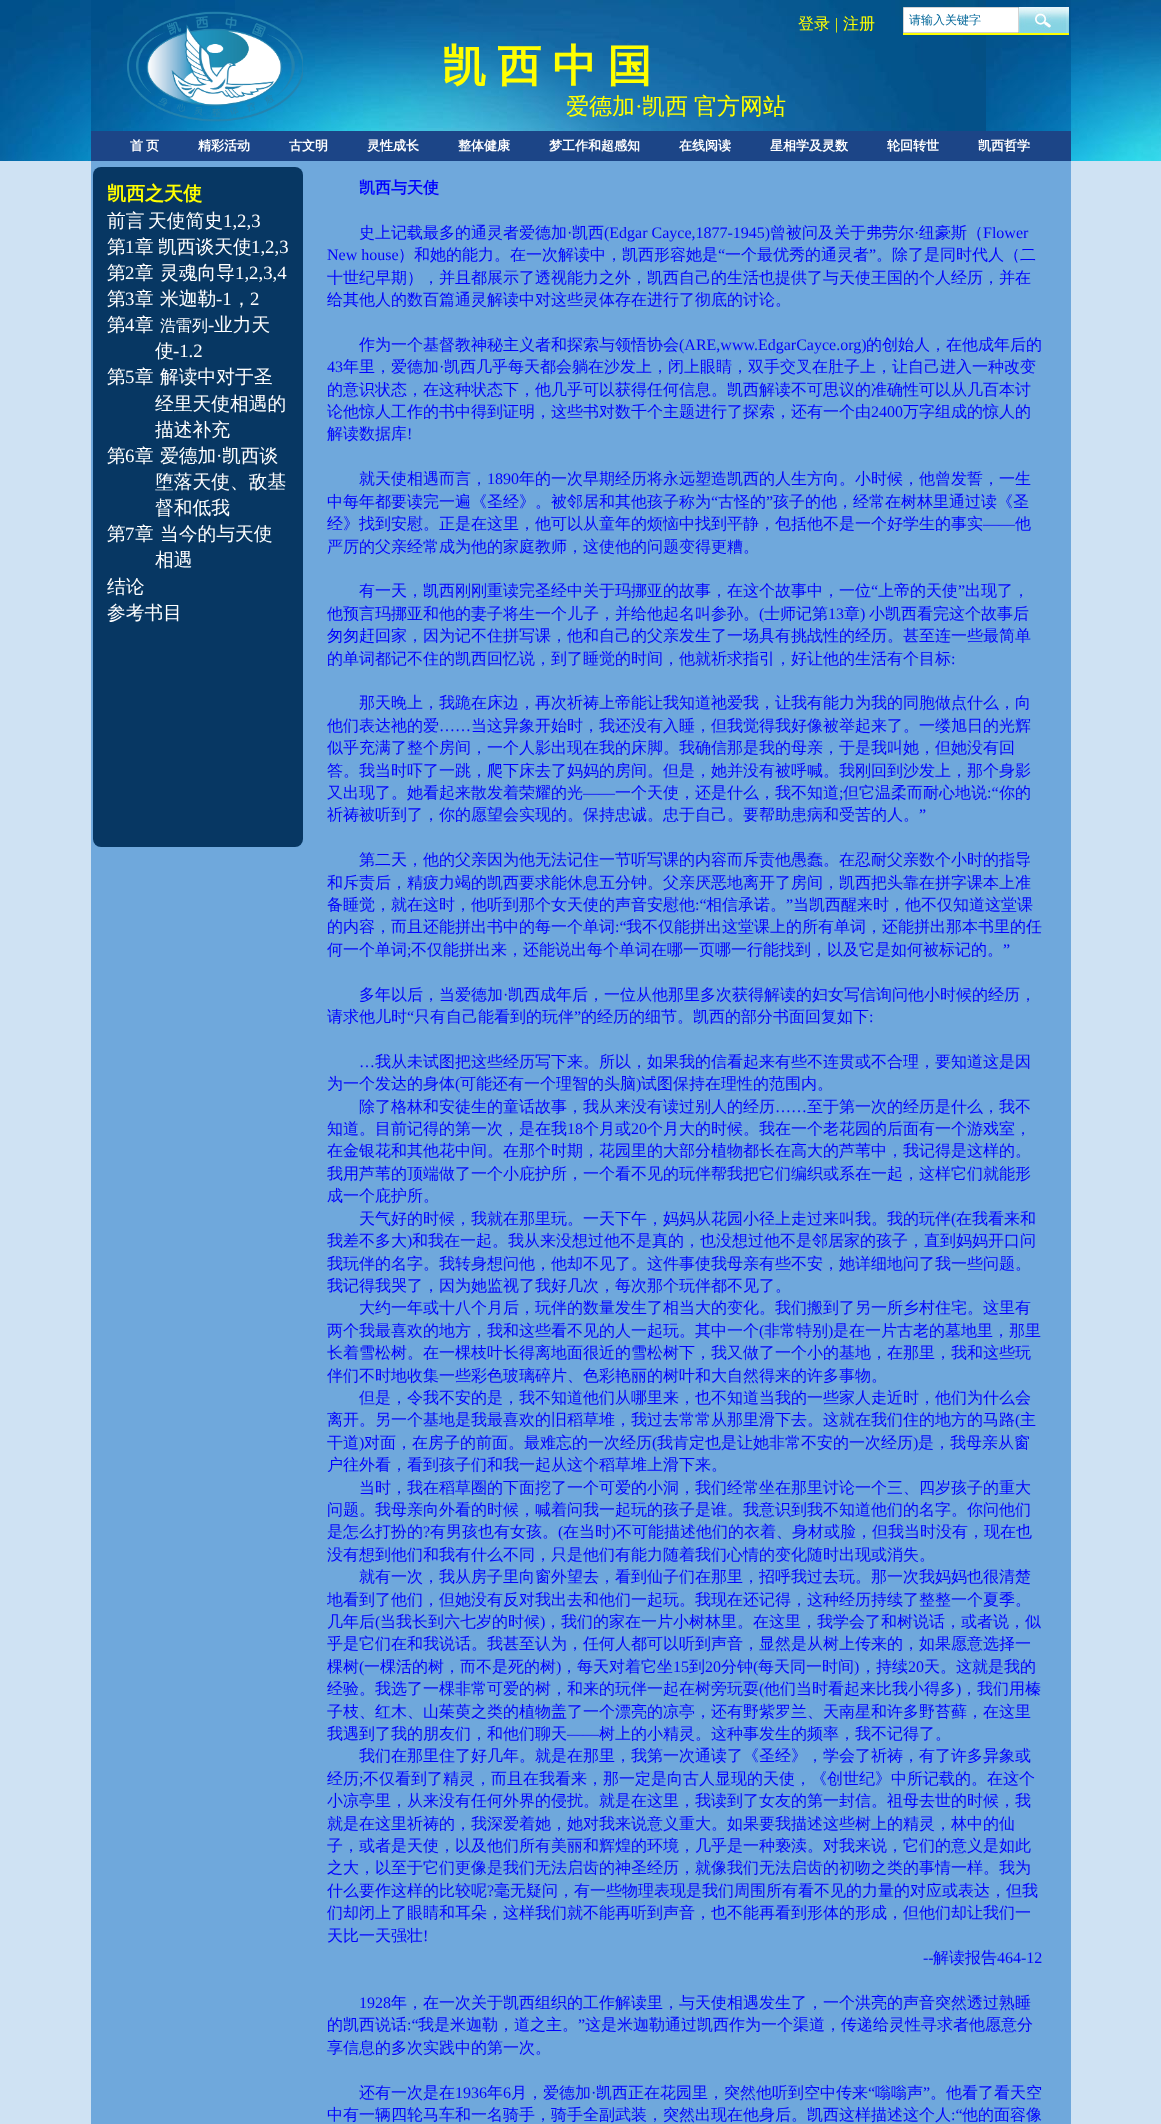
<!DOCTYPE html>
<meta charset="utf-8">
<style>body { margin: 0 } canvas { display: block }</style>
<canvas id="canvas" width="1161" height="2124"></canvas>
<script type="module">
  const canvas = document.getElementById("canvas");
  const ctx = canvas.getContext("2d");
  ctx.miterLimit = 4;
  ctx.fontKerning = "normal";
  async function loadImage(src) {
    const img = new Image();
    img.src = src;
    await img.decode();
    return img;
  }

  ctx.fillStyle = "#cfe2f3";
  ctx.fillRect(0, 0, 1161, 2124);
  ctx.fillStyle = "#6fa8dc";
  ctx.fillRect(91, 161, 980, 1963);
  ctx.drawImage(await loadImage("img1.png"), 0, 0, 1161, 161);
  ctx.drawImage(await loadImage("img2.png"), 91, 0, 980, 131);
  ctx.drawImage(await loadImage("img3.png"), 127, 11, 176, 111);
  ctx.font = "500 16px WenQuanYi Zen Hei";
  ctx.fillStyle = "#ffff00";
  ctx.fillText("登录", 798, 29);
  ctx.font = "16px Liberation Serif";
  ctx.fillText("|", 835, 29);
  ctx.font = "500 16px WenQuanYi Zen Hei";
  ctx.fillText("注册", 843, 29);
  ctx.fillRect(903, 33, 166, 2);
  ctx.fillStyle = "#ffffff";
  ctx.beginPath();
  ctx.rect(903.5, 7.5, 115, 25);
  ctx.fill();
  ctx.strokeStyle = "#d3d3d3";
  ctx.stroke();
  ctx.font = "500 12px WenQuanYi Zen Hei";
  ctx.fillStyle = "#006699";
  ctx.fillText("请输入关键字", 909, 24);
  ctx.drawImage(await loadImage("img4.png"), 1019, 7, 50, 26);
  ctx.wordSpacing = "-2px";
  ctx.font = "bold 44px WenQuanYi Zen Hei";
  ctx.fillStyle = "#ffff00";
  ctx.fillText("凯 西 中 国", 442, 81);
  ctx.wordSpacing = "0px";
  ctx.font = "500 23px WenQuanYi Zen Hei";
  ctx.fillText("爱德加", 566, 114);
  ctx.font = "23px Liberation Serif";
  ctx.fillText("·", 635, 114);
  ctx.wordSpacing = "-1px";
  ctx.font = "500 23px WenQuanYi Zen Hei";
  ctx.fillText("凯西 官方网站", 642, 114);
  ctx.fillStyle = "#1c4587";
  ctx.fillRect(91, 131, 980, 30);
  ctx.wordSpacing = "0px";
  ctx.font = "bold 13px WenQuanYi Zen Hei";
  ctx.fillStyle = "#ffffff";
  ctx.fillText("首", 130, 150);
  ctx.fillText("页", 146, 150);
  ctx.fillText("精彩活动", 198, 150);
  ctx.fillText("古文明", 289, 150);
  ctx.fillText("灵性成长", 367, 150);
  ctx.fillText("整体健康", 458, 150);
  ctx.fillText("梦工作和超感知", 549, 150);
  ctx.fillText("在线阅读", 679, 150);
  ctx.fillText("星相学及灵数", 770, 150);
  ctx.fillText("轮回转世", 887, 150);
  ctx.fillText("凯西哲学", 978, 150);
  ctx.fillStyle = "#073763";
  ctx.beginPath();
  ctx.roundRect(93, 167, 210, 680, 8);
  ctx.fill();
  ctx.font = "bold 19px WenQuanYi Zen Hei";
  ctx.fillStyle = "#ffff00";
  ctx.fillText("凯西之天使", 107, 200);
  ctx.font = "500 18.75px WenQuanYi Zen Hei";
  ctx.fillStyle = "#ffffff";
  ctx.fillText("前言", 107, 227);
  ctx.fillText("天使简史", 148, 227);
  ctx.font = "18.75px Liberation Serif";
  ctx.fillText("1,2,3", 223, 227);
  ctx.font = "500 18.75px WenQuanYi Zen Hei";
  ctx.fillText("第", 107, 253);
  ctx.font = "18.75px Liberation Serif";
  ctx.fillText("1", 125, 253);
  ctx.font = "500 18.75px WenQuanYi Zen Hei";
  ctx.fillText("章", 135, 253);
  ctx.fillText("凯西谈天使", 158, 253);
  ctx.font = "18.75px Liberation Serif";
  ctx.fillText("1,2,3", 251, 253);
  ctx.font = "500 18.75px WenQuanYi Zen Hei";
  ctx.fillText("第", 107, 279);
  ctx.font = "18.75px Liberation Serif";
  ctx.fillText("2", 125, 279);
  ctx.font = "500 18.75px WenQuanYi Zen Hei";
  ctx.fillText("章", 135, 279);
  ctx.fillText("灵魂向导", 160, 279);
  ctx.font = "18.75px Liberation Serif";
  ctx.fillText("1,2,3,4", 235, 279);
  ctx.font = "500 18.75px WenQuanYi Zen Hei";
  ctx.fillText("第", 107, 305);
  ctx.font = "18.75px Liberation Serif";
  ctx.fillText("3", 125, 305);
  ctx.font = "500 18.75px WenQuanYi Zen Hei";
  ctx.fillText("章", 135, 305);
  ctx.fillText("米迦勒", 160, 305);
  ctx.font = "18.75px Liberation Serif";
  ctx.fillText("-1", 216, 305);
  ctx.font = "500 18.75px WenQuanYi Zen Hei";
  ctx.fillText("，", 232, 305);
  ctx.font = "18.75px Liberation Serif";
  ctx.fillText("2", 250, 305);
  ctx.font = "500 18.75px WenQuanYi Zen Hei";
  ctx.fillText("第", 107, 331);
  ctx.font = "18.75px Liberation Serif";
  ctx.fillText("4", 125, 331);
  ctx.font = "500 18.75px WenQuanYi Zen Hei";
  ctx.fillText("章", 135, 331);
  ctx.font = "500 16px WenQuanYi Zen Hei";
  ctx.fillText("浩雷列", 160, 331);
  ctx.font = "18.75px Liberation Serif";
  ctx.fillText("-", 208, 331);
  ctx.font = "500 18.75px WenQuanYi Zen Hei";
  ctx.fillText("业力天", 214, 331);
  ctx.fillText("使", 155, 357);
  ctx.font = "18.75px Liberation Serif";
  ctx.fillText("-1.2", 173, 357);
  ctx.font = "500 18.75px WenQuanYi Zen Hei";
  ctx.fillText("第", 107, 383);
  ctx.font = "18.75px Liberation Serif";
  ctx.fillText("5", 125, 383);
  ctx.font = "500 18.75px WenQuanYi Zen Hei";
  ctx.fillText("章", 135, 383);
  ctx.fillText("解读中对于圣", 160, 383);
  ctx.fillText("经里天使相遇的", 155, 410);
  ctx.fillText("描述补充", 155, 436);
  ctx.fillText("第", 107, 462);
  ctx.font = "18.75px Liberation Serif";
  ctx.fillText("6", 125, 462);
  ctx.font = "500 18.75px WenQuanYi Zen Hei";
  ctx.fillText("章", 135, 462);
  ctx.fillText("爱德加", 160, 462);
  ctx.font = "18.75px Liberation Serif";
  ctx.fillText("·", 216, 462);
  ctx.font = "500 18.75px WenQuanYi Zen Hei";
  ctx.fillText("凯西谈", 222, 462);
  ctx.fillText("堕落天使、敌基", 155, 488);
  ctx.fillText("督和低我", 155, 514);
  ctx.fillText("第", 107, 540);
  ctx.font = "18.75px Liberation Serif";
  ctx.fillText("7", 125, 540);
  ctx.font = "500 18.75px WenQuanYi Zen Hei";
  ctx.fillText("章", 135, 540);
  ctx.fillText("当今的与天使", 160, 540);
  ctx.fillText("相遇", 155, 566);
  ctx.fillText("结论", 107, 593);
  ctx.fillText("参考书目", 107, 619);
  ctx.font = "bold 16px WenQuanYi Zen Hei";
  ctx.fillStyle = "#0000ff";
  ctx.fillText("凯西与天使", 359, 193);
  ctx.font = "500 16px WenQuanYi Zen Hei";
  ctx.fillText("史上记载最多的通灵者爱德加", 359, 238);
  ctx.font = "16px Liberation Serif";
  ctx.fillText("·", 567, 238);
  ctx.font = "500 16px WenQuanYi Zen Hei";
  ctx.fillText("凯西", 572, 238);
  ctx.font = "16px Liberation Serif";
  ctx.fillText("(Edgar Cayce,1877-1945)", 604, 238);
  ctx.font = "500 16px WenQuanYi Zen Hei";
  ctx.fillText("曾被问及关于弗劳尔", 770, 238);
  ctx.font = "16px Liberation Serif";
  ctx.fillText("·", 914, 238);
  ctx.font = "500 16px WenQuanYi Zen Hei";
  ctx.fillText("纽豪斯（", 919, 238);
  ctx.font = "16px Liberation Serif";
  ctx.fillText("Flower", 983, 238);
  ctx.fillText("New house", 327, 260);
  ctx.font = "500 16px WenQuanYi Zen Hei";
  ctx.fillText("）和她的能力。在一次解读中，凯西形容她是", 398, 260);
  ctx.font = "16px Liberation Serif";
  ctx.fillText("“", 718, 260);
  ctx.font = "500 16px WenQuanYi Zen Hei";
  ctx.fillText("一个最优秀的通灵者", 725, 260);
  ctx.font = "16px Liberation Serif";
  ctx.fillText("”", 869, 260);
  ctx.font = "500 16px WenQuanYi Zen Hei";
  ctx.fillText("。除了是同时代人（二", 876, 260);
  ctx.fillText("十世纪早期），并且都展示了透视能力之外，凯西自己的生活也提供了与天使王国的个人经历，并在", 327, 283);
  ctx.save();
  ctx.beginPath();
  ctx.rect(327, 177, 716, 1947);
  ctx.clip();
  ctx.fillText("给其他人的数百篇通灵解读中对这些灵体存在进行了彻底的讨论。", 327, 305);
  ctx.restore();
  ctx.fillText("作为一个基督教神秘主义者和探索与领悟协会", 359, 350);
  ctx.font = "16px Liberation Serif";
  ctx.fillText("(ARE,www.EdgarCayce.org)", 679, 350);
  ctx.font = "500 16px WenQuanYi Zen Hei";
  ctx.fillText("的创始人，在他成年后的", 866, 350);
  ctx.font = "16px Liberation Serif";
  ctx.fillText("43", 327, 372);
  ctx.font = "500 16px WenQuanYi Zen Hei";
  ctx.fillText("年里，爱德加", 343, 372);
  ctx.font = "16px Liberation Serif";
  ctx.fillText("·", 439, 372);
  ctx.font = "500 16px WenQuanYi Zen Hei";
  ctx.fillText("凯西几乎每天都会躺在沙发上，闭上眼睛，双手交叉在肚子上，让自己进入一种改变", 444, 372);
  ctx.fillText("的意识状态，在这种状态下，他几乎可以获得任何信息。凯西解读不可思议的准确性可以从几百本讨", 327, 395);
  ctx.fillText("论他惊人工作的书中得到证明，这些书对数千个主题进行了探索，还有一个由", 327, 417);
  ctx.font = "16px Liberation Serif";
  ctx.fillText("2400", 871, 417);
  ctx.font = "500 16px WenQuanYi Zen Hei";
  ctx.fillText("万字组成的惊人的", 903, 417);
  ctx.fillText("解读数据库", 327, 439);
  ctx.font = "16px Liberation Serif";
  ctx.fillText("!", 407, 439);
  ctx.font = "500 16px WenQuanYi Zen Hei";
  ctx.fillText("就天使相遇而言，", 359, 484);
  ctx.font = "16px Liberation Serif";
  ctx.fillText("1890", 487, 484);
  ctx.font = "500 16px WenQuanYi Zen Hei";
  ctx.fillText("年的一次早期经历将永远塑造凯西的人生方向。小时候，他曾发誓，一生", 519, 484);
  ctx.fillText("中每年都要读完一遍《圣经》。被邻居和其他孩子称为", 327, 507);
  ctx.font = "16px Liberation Serif";
  ctx.fillText("“", 711, 507);
  ctx.font = "500 16px WenQuanYi Zen Hei";
  ctx.fillText("古怪的", 718, 507);
  ctx.font = "16px Liberation Serif";
  ctx.fillText("”", 766, 507);
  ctx.font = "500 16px WenQuanYi Zen Hei";
  ctx.fillText("孩子的他，经常在树林里通过读《圣", 773, 507);
  ctx.fillText("经》找到安慰。正是在这里，他可以从童年的烦恼中找到平静，包括他不是一个好学生的事实", 327, 529);
  ctx.font = "16px Liberation Serif";
  ctx.fillText("——", 983, 529);
  ctx.font = "500 16px WenQuanYi Zen Hei";
  ctx.fillText("他", 1015, 529);
  ctx.fillText("严厉的父亲经常成为他的家庭教师，这使他的问题变得更糟。", 327, 552);
  ctx.fillText("有一天，凯西刚刚重读完圣经中关于玛挪亚的故事，在这个故事中，一位", 359, 596);
  ctx.font = "16px Liberation Serif";
  ctx.fillText("“", 871, 596);
  ctx.font = "500 16px WenQuanYi Zen Hei";
  ctx.fillText("上帝的天使", 878, 596);
  ctx.font = "16px Liberation Serif";
  ctx.fillText("”", 958, 596);
  ctx.font = "500 16px WenQuanYi Zen Hei";
  ctx.fillText("出现了，", 965, 596);
  ctx.fillText("他预言玛挪亚和他的妻子将生一个儿子，并给他起名叫参孙。", 327, 619);
  ctx.font = "16px Liberation Serif";
  ctx.fillText("(", 759, 619);
  ctx.font = "500 16px WenQuanYi Zen Hei";
  ctx.fillText("士师记第", 764, 619);
  ctx.font = "16px Liberation Serif";
  ctx.fillText("13", 828, 619);
  ctx.font = "500 16px WenQuanYi Zen Hei";
  ctx.fillText("章", 844, 619);
  ctx.font = "16px Liberation Serif";
  ctx.fillText(")", 860, 619);
  ctx.font = "500 16px WenQuanYi Zen Hei";
  ctx.fillText("小凯西看完这个故事后", 869, 619);
  ctx.fillText("匆匆赶回家，因为记不住拼写课，他和自己的父亲发生了一场具有挑战性的经历。甚至连一些最简单", 327, 641);
  ctx.fillText("的单词都记不住的凯西回忆说，到了睡觉的时间，他就祈求指引，好让他的生活有个目标", 327, 664);
  ctx.font = "16px Liberation Serif";
  ctx.fillText(":", 951, 664);
  ctx.font = "500 16px WenQuanYi Zen Hei";
  ctx.fillText("那天晚上，我跪在床边，再次祈祷上帝能让我知道祂爱我，让我有能力为我的同胞做点什么，向", 359, 708);
  ctx.fillText("他们表达祂的爱", 327, 731);
  ctx.font = "16px Liberation Serif";
  ctx.fillText("……", 439, 731);
  ctx.font = "500 16px WenQuanYi Zen Hei";
  ctx.fillText("当这异象开始时，我还没有入睡，但我觉得我好像被举起来了。一缕旭日的光辉", 471, 731);
  ctx.fillText("似乎充满了整个房间，一个人影出现在我的床脚。我确信那是我的母亲，于是我叫她，但她没有回", 327, 753);
  ctx.fillText("答。我当时吓了一跳，爬下床去了妈妈的房间。但是，她并没有被呼喊。我刚回到沙发上，那个身影", 327, 776);
  ctx.fillText("又出现了。她看起来散发着荣耀的光", 327, 798);
  ctx.font = "16px Liberation Serif";
  ctx.fillText("——", 583, 798);
  ctx.font = "500 16px WenQuanYi Zen Hei";
  ctx.fillText("一个天使，还是什么，我不知道", 615, 798);
  ctx.font = "16px Liberation Serif";
  ctx.fillText(";", 839, 798);
  ctx.font = "500 16px WenQuanYi Zen Hei";
  ctx.fillText("但它温柔而耐心地说", 843, 798);
  ctx.font = "16px Liberation Serif";
  ctx.fillText(":“", 987, 798);
  ctx.font = "500 16px WenQuanYi Zen Hei";
  ctx.fillText("你的", 999, 798);
  ctx.fillText("祈祷被听到了，你的愿望会实现的。保持忠诚。忠于自己。要帮助患病和受苦的人。", 327, 820);
  ctx.font = "16px Liberation Serif";
  ctx.fillText("”", 919, 820);
  ctx.font = "500 16px WenQuanYi Zen Hei";
  ctx.fillText("第二天，他的父亲因为他无法记住一节听写课的内容而斥责他愚蠢。在忍耐父亲数个小时的指导", 359, 865);
  ctx.fillText("和斥责后，精疲力竭的凯西要求能休息五分钟。父亲厌恶地离开了房间，凯西把头靠在拼字课本上准", 327, 888);
  ctx.fillText("备睡觉，就在这时，他听到那个女天使的声音安慰他", 327, 910);
  ctx.font = "16px Liberation Serif";
  ctx.fillText(":“", 695, 910);
  ctx.font = "500 16px WenQuanYi Zen Hei";
  ctx.fillText("相信承诺。", 706, 910);
  ctx.font = "16px Liberation Serif";
  ctx.fillText("”", 786, 910);
  ctx.font = "500 16px WenQuanYi Zen Hei";
  ctx.fillText("当凯西醒来时，他不仅知道这堂课", 793, 910);
  ctx.fillText("的内容，而且还能拼出书中的每一个单词", 327, 932);
  ctx.font = "16px Liberation Serif";
  ctx.fillText(":“", 615, 932);
  ctx.font = "500 16px WenQuanYi Zen Hei";
  ctx.fillText("我不仅能拼出这堂课上的所有单词，还能拼出那本书里的任", 626, 932);
  ctx.fillText("何一个单词", 327, 955);
  ctx.fillText("不仅能拼出来，还能说出每个单词在哪一页哪一行能找到，以及它是如何被标记的。", 411, 955);
  ctx.font = "16px Liberation Serif";
  ctx.fillText("”", 1003, 955);
  ctx.fillText(";", 407, 955);
  ctx.font = "500 16px WenQuanYi Zen Hei";
  ctx.fillText("多年以后，当爱德加", 359, 1000);
  ctx.font = "16px Liberation Serif";
  ctx.fillText("·", 503, 1000);
  ctx.font = "500 16px WenQuanYi Zen Hei";
  ctx.fillText("凯西成年后，一位从他那里多次获得解读的妇女写信询问他小时候的经历，", 508, 1000);
  ctx.fillText("请求他儿时", 327, 1022);
  ctx.font = "16px Liberation Serif";
  ctx.fillText("“", 407, 1022);
  ctx.font = "500 16px WenQuanYi Zen Hei";
  ctx.fillText("只有自己能看到的玩伴", 414, 1022);
  ctx.font = "16px Liberation Serif";
  ctx.fillText("”", 574, 1022);
  ctx.font = "500 16px WenQuanYi Zen Hei";
  ctx.fillText("的经历的细节。凯西的部分书面回复如下", 581, 1022);
  ctx.font = "16px Liberation Serif";
  ctx.fillText(":", 869, 1022);
  ctx.fillText("…", 359, 1067);
  ctx.font = "500 16px WenQuanYi Zen Hei";
  ctx.fillText("我从未试图把这些经历写下来。所以，如果我的信看起来有些不连贯或不合理，要知道这是因", 375, 1067);
  ctx.fillText("为一个发达的身体", 327, 1089);
  ctx.font = "16px Liberation Serif";
  ctx.fillText("(", 455, 1089);
  ctx.font = "500 16px WenQuanYi Zen Hei";
  ctx.fillText("可能还有一个理智的头脑", 460, 1089);
  ctx.font = "16px Liberation Serif";
  ctx.fillText(")", 636, 1089);
  ctx.font = "500 16px WenQuanYi Zen Hei";
  ctx.fillText("试图保持在理性的范围内。", 641, 1089);
  ctx.fillText("除了格林和安徒生的童话故事，我从来没有读过别人的经历", 359, 1112);
  ctx.font = "16px Liberation Serif";
  ctx.fillText("……", 775, 1112);
  ctx.font = "500 16px WenQuanYi Zen Hei";
  ctx.fillText("至于第一次的经历是什么，我不", 807, 1112);
  ctx.fillText("知道。目前记得的第一次，是在我", 327, 1134);
  ctx.font = "16px Liberation Serif";
  ctx.fillText("18", 567, 1134);
  ctx.font = "500 16px WenQuanYi Zen Hei";
  ctx.fillText("个月或", 583, 1134);
  ctx.font = "16px Liberation Serif";
  ctx.fillText("20", 631, 1134);
  ctx.font = "500 16px WenQuanYi Zen Hei";
  ctx.fillText("个月大的时候。我在一个老花园的后面有一个游戏室，", 647, 1134);
  ctx.fillText("在金银花和其他花中间。在那个时期，花园里的大部分植物都长在高大的芦苇中，我记得是这样的。", 327, 1156);
  ctx.fillText("我用芦苇的顶端做了一个小庇护所，一个看不见的玩伴帮我把它们编织或系在一起，这样它们就能形", 327, 1179);
  ctx.fillText("成一个庇护所。", 327, 1201);
  ctx.fillText("天气好的时候，我就在那里玩。一天下午，妈妈从花园小径上走过来叫我。我的玩伴", 359, 1224);
  ctx.font = "16px Liberation Serif";
  ctx.fillText("(", 951, 1224);
  ctx.font = "500 16px WenQuanYi Zen Hei";
  ctx.fillText("在我看来和", 956, 1224);
  ctx.fillText("我差不多大", 327, 1246);
  ctx.font = "16px Liberation Serif";
  ctx.fillText(")", 407, 1246);
  ctx.font = "500 16px WenQuanYi Zen Hei";
  ctx.fillText("和我在一起。我从来没想过他不是真的，也没想过他不是邻居家的孩子，直到妈妈开口问", 412, 1246);
  ctx.fillText("我玩伴的名字。我转身想问他，他却不见了。这件事使我母亲有些不安，她详细地问了我一些问题。", 327, 1269);
  ctx.fillText("我记得我哭了，因为她监视了我好几次，每次那个玩伴都不见了。", 327, 1291);
  ctx.fillText("大约一年或十八个月后，玩伴的数量发生了相当大的变化。我们搬到了另一所乡村住宅。这里有", 359, 1313);
  ctx.fillText("两个我最喜欢的地方，我和这些看不见的人一起玩。其中一个", 327, 1336);
  ctx.font = "16px Liberation Serif";
  ctx.fillText("(", 759, 1336);
  ctx.font = "500 16px WenQuanYi Zen Hei";
  ctx.fillText("非常特别", 764, 1336);
  ctx.font = "16px Liberation Serif";
  ctx.fillText(")", 828, 1336);
  ctx.font = "500 16px WenQuanYi Zen Hei";
  ctx.fillText("是在一片古老的墓地里，那里", 833, 1336);
  ctx.fillText("长着雪松树。在一棵枝叶长得离地面很近的雪松树下，我又做了一个小的基地，在那里，我和这些玩", 327, 1358);
  ctx.fillText("伴们不时地收集一些彩色玻璃碎片、色彩艳丽的树叶和大自然得来的许多事物。", 327, 1381);
  ctx.fillText("但是，令我不安的是，我不知道他们从哪里来，也不知道当我的一些家人走近时，他们为什么会", 359, 1403);
  ctx.fillText("离开。另一个基地是我最喜欢的旧稻草堆，我过去常常从那里滑下去。这就在我们住的地方的马路", 327, 1425);
  ctx.font = "16px Liberation Serif";
  ctx.fillText("(", 1015, 1425);
  ctx.font = "500 16px WenQuanYi Zen Hei";
  ctx.fillText("主", 1020, 1425);
  ctx.fillText("干道", 327, 1448);
  ctx.font = "16px Liberation Serif";
  ctx.fillText(")", 359, 1448);
  ctx.font = "500 16px WenQuanYi Zen Hei";
  ctx.fillText("对面，在房子的前面。最难忘的一次经历", 364, 1448);
  ctx.font = "16px Liberation Serif";
  ctx.fillText("(", 652, 1448);
  ctx.font = "500 16px WenQuanYi Zen Hei";
  ctx.fillText("我肯定也是让她非常不安的一次经历", 657, 1448);
  ctx.font = "16px Liberation Serif";
  ctx.fillText(")", 913, 1448);
  ctx.font = "500 16px WenQuanYi Zen Hei";
  ctx.fillText("是，我母亲从窗", 918, 1448);
  ctx.fillText("户往外看，看到孩子们和我一起从这个稻草堆上滑下来。", 327, 1470);
  ctx.fillText("当时，我在稻草圈的下面挖了一个可爱的小洞，我们经常坐在那里讨论一个三、四岁孩子的重大", 359, 1493);
  ctx.fillText("问题。我母亲向外看的时候，喊着问我一起玩的孩子是谁。我意识到我不知道他们的名字。你问他们", 327, 1515);
  ctx.fillText("是怎么打扮的", 327, 1537);
  ctx.font = "16px Liberation Serif";
  ctx.fillText("?", 423, 1537);
  ctx.font = "500 16px WenQuanYi Zen Hei";
  ctx.fillText("有男孩也有女孩。", 430, 1537);
  ctx.font = "16px Liberation Serif";
  ctx.fillText("(", 558, 1537);
  ctx.font = "500 16px WenQuanYi Zen Hei";
  ctx.fillText("在当时", 563, 1537);
  ctx.font = "16px Liberation Serif";
  ctx.fillText(")", 611, 1537);
  ctx.font = "500 16px WenQuanYi Zen Hei";
  ctx.fillText("不可能描述他们的衣着、身材或脸，但我当时没有，现在也", 616, 1537);
  ctx.fillText("没有想到他们和我有什么不同，只是他们有能力随着我们心情的变化随时出现或消失。", 327, 1560);
  ctx.fillText("就有一次，我从房子里向窗外望去，看到仙子们在那里，招呼我过去玩。那一次我妈妈也很清楚", 359, 1582);
  ctx.save();
  ctx.beginPath();
  ctx.rect(327, 177, 716, 1947);
  ctx.clip();
  ctx.fillText("地看到了他们，但她没有反对我出去和他们一起玩。我现在还记得，这种经历持续了整整一个夏季。", 327, 1605);
  ctx.restore();
  ctx.fillText("几年后", 327, 1627);
  ctx.font = "16px Liberation Serif";
  ctx.fillText("(", 375, 1627);
  ctx.font = "500 16px WenQuanYi Zen Hei";
  ctx.fillText("当我长到六七岁的时候", 380, 1627);
  ctx.font = "16px Liberation Serif";
  ctx.fillText(")", 540, 1627);
  ctx.font = "500 16px WenQuanYi Zen Hei";
  ctx.fillText("，我们的家在一片小树林里。在这里，我学会了和树说话，或者说，似", 545, 1627);
  ctx.fillText("乎是它们在和我说话。我甚至认为，任何人都可以听到声音，显然是从树上传来的，如果愿意选择一", 327, 1649);
  ctx.fillText("棵树", 327, 1672);
  ctx.font = "16px Liberation Serif";
  ctx.fillText("(", 359, 1672);
  ctx.font = "500 16px WenQuanYi Zen Hei";
  ctx.fillText("一棵活的树，而不是死的树", 364, 1672);
  ctx.font = "16px Liberation Serif";
  ctx.fillText(")", 556, 1672);
  ctx.font = "500 16px WenQuanYi Zen Hei";
  ctx.fillText("，每天对着它坐", 561, 1672);
  ctx.font = "16px Liberation Serif";
  ctx.fillText("15", 673, 1672);
  ctx.font = "500 16px WenQuanYi Zen Hei";
  ctx.fillText("到", 689, 1672);
  ctx.font = "16px Liberation Serif";
  ctx.fillText("20", 705, 1672);
  ctx.font = "500 16px WenQuanYi Zen Hei";
  ctx.fillText("分钟", 721, 1672);
  ctx.font = "16px Liberation Serif";
  ctx.fillText("(", 753, 1672);
  ctx.font = "500 16px WenQuanYi Zen Hei";
  ctx.fillText("每天同一时间", 758, 1672);
  ctx.font = "16px Liberation Serif";
  ctx.fillText(")", 854, 1672);
  ctx.font = "500 16px WenQuanYi Zen Hei";
  ctx.fillText("，持续", 860, 1672);
  ctx.font = "16px Liberation Serif";
  ctx.fillText("20", 908, 1672);
  ctx.font = "500 16px WenQuanYi Zen Hei";
  ctx.fillText("天。这就是我的", 924, 1672);
  ctx.fillText("经验。我选了一棵非常可爱的树，和来的玩伴一起在树旁玩耍", 327, 1694);
  ctx.font = "16px Liberation Serif";
  ctx.fillText("(", 759, 1694);
  ctx.font = "500 16px WenQuanYi Zen Hei";
  ctx.fillText("他们当时看起来比我小得多", 764, 1694);
  ctx.font = "16px Liberation Serif";
  ctx.fillText(")", 956, 1694);
  ctx.font = "500 16px WenQuanYi Zen Hei";
  ctx.fillText("，我们用榛", 961, 1694);
  ctx.fillText("子枝、红木、山茱萸之类的植物盖了一个漂亮的凉亭，还有野紫罗兰、天南星和许多野苔藓，在这里", 327, 1717);
  ctx.fillText("我遇到了我的朋友们，和他们聊天", 327, 1739);
  ctx.font = "16px Liberation Serif";
  ctx.fillText("——", 567, 1739);
  ctx.font = "500 16px WenQuanYi Zen Hei";
  ctx.fillText("树上的小精灵。这种事发生的频率，我不记得了。", 599, 1739);
  ctx.fillText("我们在那里住了好几年。就是在那里，我第一次通读了《圣经》，学会了祈祷，有了许多异象或", 359, 1761);
  ctx.fillText("经历", 327, 1784);
  ctx.font = "16px Liberation Serif";
  ctx.fillText(";", 359, 1784);
  ctx.font = "500 16px WenQuanYi Zen Hei";
  ctx.fillText("不仅看到了精灵，而且在我看来，那一定是向古人显现的天使，《创世纪》中所记载的。在这个", 363, 1784);
  ctx.fillText("小凉亭里，从来没有任何外界的侵扰。就是在这里，我读到了女友的第一封信。祖母去世的时候，我", 327, 1806);
  ctx.fillText("就是在这里祈祷的，我深爱着她，她对我来说意义重大。如果要我描述这些树上的精灵，林中的仙", 327, 1829);
  ctx.fillText("子，或者是天使，以及他们所有美丽和辉煌的环境，几乎是一种亵渎。对我来说，它们的意义是如此", 327, 1851);
  ctx.fillText("之大，以至于它们更像是我们无法启齿的神圣经历，就像我们无法启齿的初吻之类的事情一样。我为", 327, 1873);
  ctx.fillText("什么要作这样的比较呢", 327, 1896);
  ctx.font = "16px Liberation Serif";
  ctx.fillText("?", 487, 1896);
  ctx.font = "500 16px WenQuanYi Zen Hei";
  ctx.fillText("毫无疑问，有一些物理表现是我们周围所有看不见的力量的对应或表达，但我", 494, 1896);
  ctx.fillText("们却闭上了眼睛和耳朵，这样我们就不能再听到声音，也不能再看到形体的形成，但他们却让我们一", 327, 1918);
  ctx.fillText("天比一天强壮", 327, 1941);
  ctx.font = "16px Liberation Serif";
  ctx.fillText("!", 423, 1941);
  ctx.fillText("--", 923, 1963);
  ctx.font = "500 16px WenQuanYi Zen Hei";
  ctx.fillText("解读报告", 933, 1963);
  ctx.font = "16px Liberation Serif";
  ctx.fillText("464-12", 997, 1963);
  ctx.fillText("1928", 359, 2008);
  ctx.font = "500 16px WenQuanYi Zen Hei";
  ctx.fillText("年，在一次关于凯西组织的工作解读里，与天使相遇发生了，一个洪亮的声音突然透过熟睡", 391, 2008);
  ctx.fillText("的凯西说话", 327, 2030);
  ctx.font = "16px Liberation Serif";
  ctx.fillText(":“", 407, 2030);
  ctx.font = "500 16px WenQuanYi Zen Hei";
  ctx.fillText("我是米迦勒，道之主。", 418, 2030);
  ctx.font = "16px Liberation Serif";
  ctx.fillText("”", 578, 2030);
  ctx.font = "500 16px WenQuanYi Zen Hei";
  ctx.fillText("这是米迦勒通过凯西作为一个渠道，传递给灵性寻求者他愿意分", 585, 2030);
  ctx.fillText("享信息的多次实践中的第一次。", 327, 2053);
  ctx.fillText("还有一次是在", 359, 2098);
  ctx.font = "16px Liberation Serif";
  ctx.fillText("1936", 455, 2098);
  ctx.font = "500 16px WenQuanYi Zen Hei";
  ctx.fillText("年", 487, 2098);
  ctx.font = "16px Liberation Serif";
  ctx.fillText("6", 503, 2098);
  ctx.font = "500 16px WenQuanYi Zen Hei";
  ctx.fillText("月，爱德加", 511, 2098);
  ctx.fillText("凯西正在花园里，突然他听到空中传来", 596, 2098);
  ctx.font = "16px Liberation Serif";
  ctx.fillText("“", 868, 2098);
  ctx.font = "500 16px WenQuanYi Zen Hei";
  ctx.fillText("嗡嗡声", 875, 2098);
  ctx.font = "16px Liberation Serif";
  ctx.fillText("”", 923, 2098);
  ctx.font = "500 16px WenQuanYi Zen Hei";
  ctx.fillText("。他看了看天空", 930, 2098);
  ctx.font = "16px Liberation Serif";
  ctx.fillText("·", 591, 2098);
  ctx.font = "500 16px WenQuanYi Zen Hei";
  ctx.fillText("中有一辆四轮马车和一名骑手，骑手全副武装，突然出现在他身后。凯西这样描述这个人", 327, 2120);
  ctx.font = "16px Liberation Serif";
  ctx.fillText(":“", 951, 2120);
  ctx.font = "500 16px WenQuanYi Zen Hei";
  ctx.fillText("他的面容像", 962, 2120);
</script>
